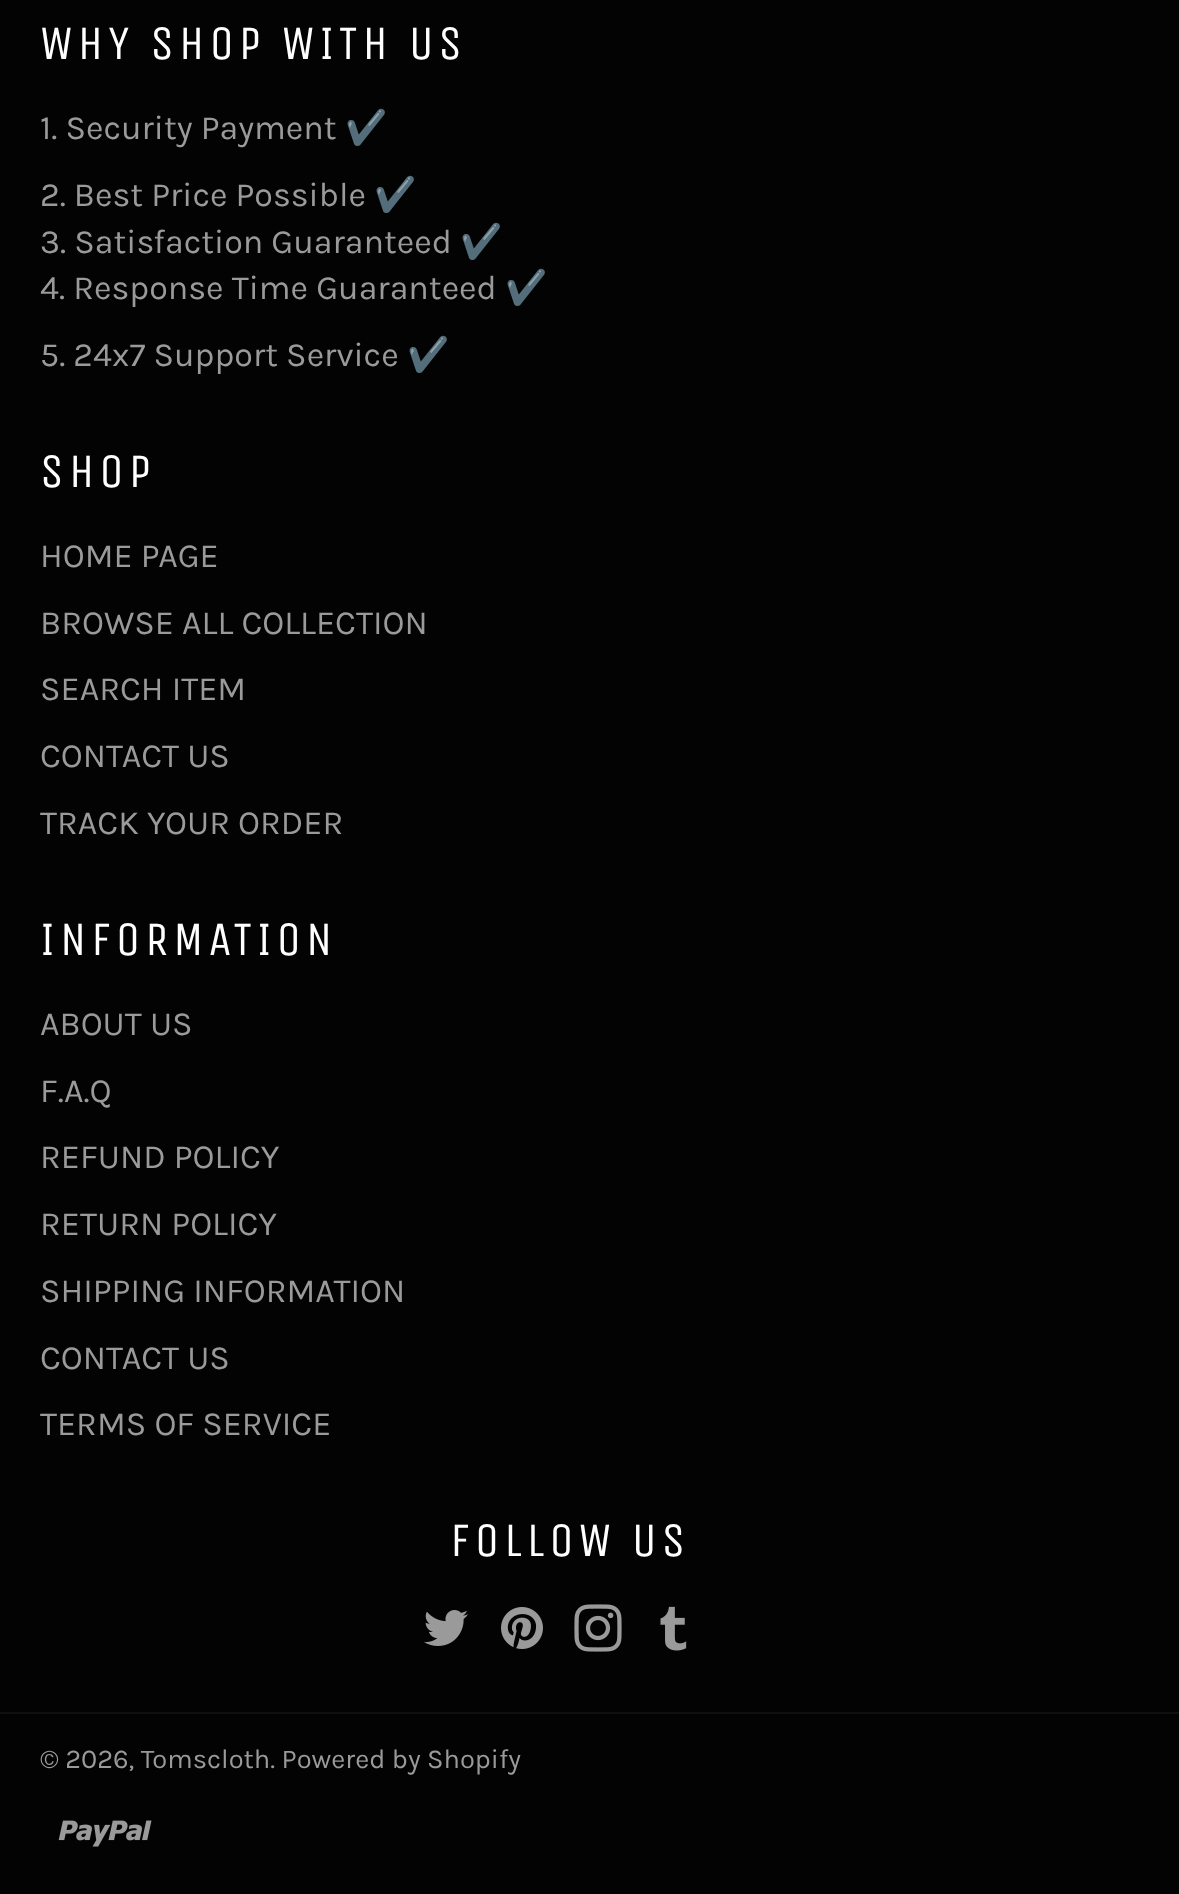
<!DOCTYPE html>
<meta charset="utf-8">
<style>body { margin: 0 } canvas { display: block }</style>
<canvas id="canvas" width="1179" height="1894"></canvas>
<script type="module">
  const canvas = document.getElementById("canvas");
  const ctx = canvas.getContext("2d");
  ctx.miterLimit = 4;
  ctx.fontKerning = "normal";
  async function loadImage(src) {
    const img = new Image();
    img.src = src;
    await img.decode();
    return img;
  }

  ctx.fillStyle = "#030303";
  ctx.fillRect(0, 0, 1179, 1894);
  ctx.letterSpacing = "4.75px";
  ctx.font = "48px Unica One";
  ctx.fillStyle = "#ffffff";
  ctx.fillText("WHY SHOP WITH US", 40, 59);
  ctx.letterSpacing = "0px";
  ctx.font = "34px Karla";
  ctx.fillStyle = "#9a9a9a";
  ctx.fillText("1. Security Payment", 40, 139);
  ctx.font = "34px Noto Color Emoji";
  ctx.fillText("✔️", 345, 139);
  ctx.font = "34px Karla";
  ctx.fillText("2. Best Price Possible", 40, 206);
  ctx.font = "34px Noto Color Emoji";
  ctx.fillText("✔️", 374, 206);
  ctx.font = "34px Karla";
  ctx.fillText("3. Satisfaction Guaranteed", 40, 253);
  ctx.font = "34px Noto Color Emoji";
  ctx.fillText("✔️", 460, 253);
  ctx.font = "34px Karla";
  ctx.fillText("4. Response Time Guaranteed", 40, 299);
  ctx.font = "34px Noto Color Emoji";
  ctx.fillText("✔️", 505, 299);
  ctx.font = "34px Karla";
  ctx.fillText("5. 24x7 Support Service", 40, 366);
  ctx.font = "34px Noto Color Emoji";
  ctx.fillText("✔️", 407, 366);
  ctx.letterSpacing = "4.75px";
  ctx.font = "48px Unica One";
  ctx.fillStyle = "#ffffff";
  ctx.fillText("SHOP", 40, 487);
  ctx.letterSpacing = "0px";
  ctx.font = "34px Karla";
  ctx.fillStyle = "#9a9a9a";
  ctx.fillText("HOME PAGE", 40, 567);
  ctx.fillText("BROWSE ALL COLLECTION", 40, 634);
  ctx.fillText("SEARCH ITEM", 40, 700);
  ctx.fillText("CONTACT US", 40, 767);
  ctx.fillText("TRACK YOUR ORDER", 40, 834);
  ctx.letterSpacing = "4.75px";
  ctx.font = "48px Unica One";
  ctx.fillStyle = "#ffffff";
  ctx.fillText("INFORMATION", 40, 955);
  ctx.letterSpacing = "0px";
  ctx.font = "34px Karla";
  ctx.fillStyle = "#9a9a9a";
  ctx.fillText("ABOUT US", 40, 1035);
  ctx.fillText("F.A.Q", 40, 1102);
  ctx.fillText("REFUND POLICY", 40, 1168);
  ctx.fillText("RETURN POLICY", 40, 1235);
  ctx.fillText("SHIPPING INFORMATION", 40, 1302);
  ctx.fillText("CONTACT US", 40, 1369);
  ctx.fillText("TERMS OF SERVICE", 40, 1435);
  ctx.letterSpacing = "4.75px";
  ctx.font = "48px Unica One";
  ctx.fillStyle = "#ffffff";
  ctx.fillText("FOLLOW US", 450, 1556);
  ctx.drawImage(await loadImage("img1.png"), 424, 1610, 44, 36);
  ctx.drawImage(await loadImage("img2.png"), 501, 1607, 42, 42);
  ctx.drawImage(await loadImage("img3.png"), 574, 1604, 48, 48);
  ctx.drawImage(await loadImage("img4.png"), 660, 1606, 27, 45);
  ctx.fillStyle = "#101010";
  ctx.fillRect(0, 1712, 1179, 2);
  ctx.letterSpacing = "0px";
  ctx.font = "27.25px Karla";
  ctx.fillStyle = "#9a9a9a";
  ctx.fillText("© 2026, Tomscloth. Powered by Shopify", 40, 1768);
  ctx.drawImage(await loadImage("img5.png"), 58, 1820, 94, 27);
</script>
